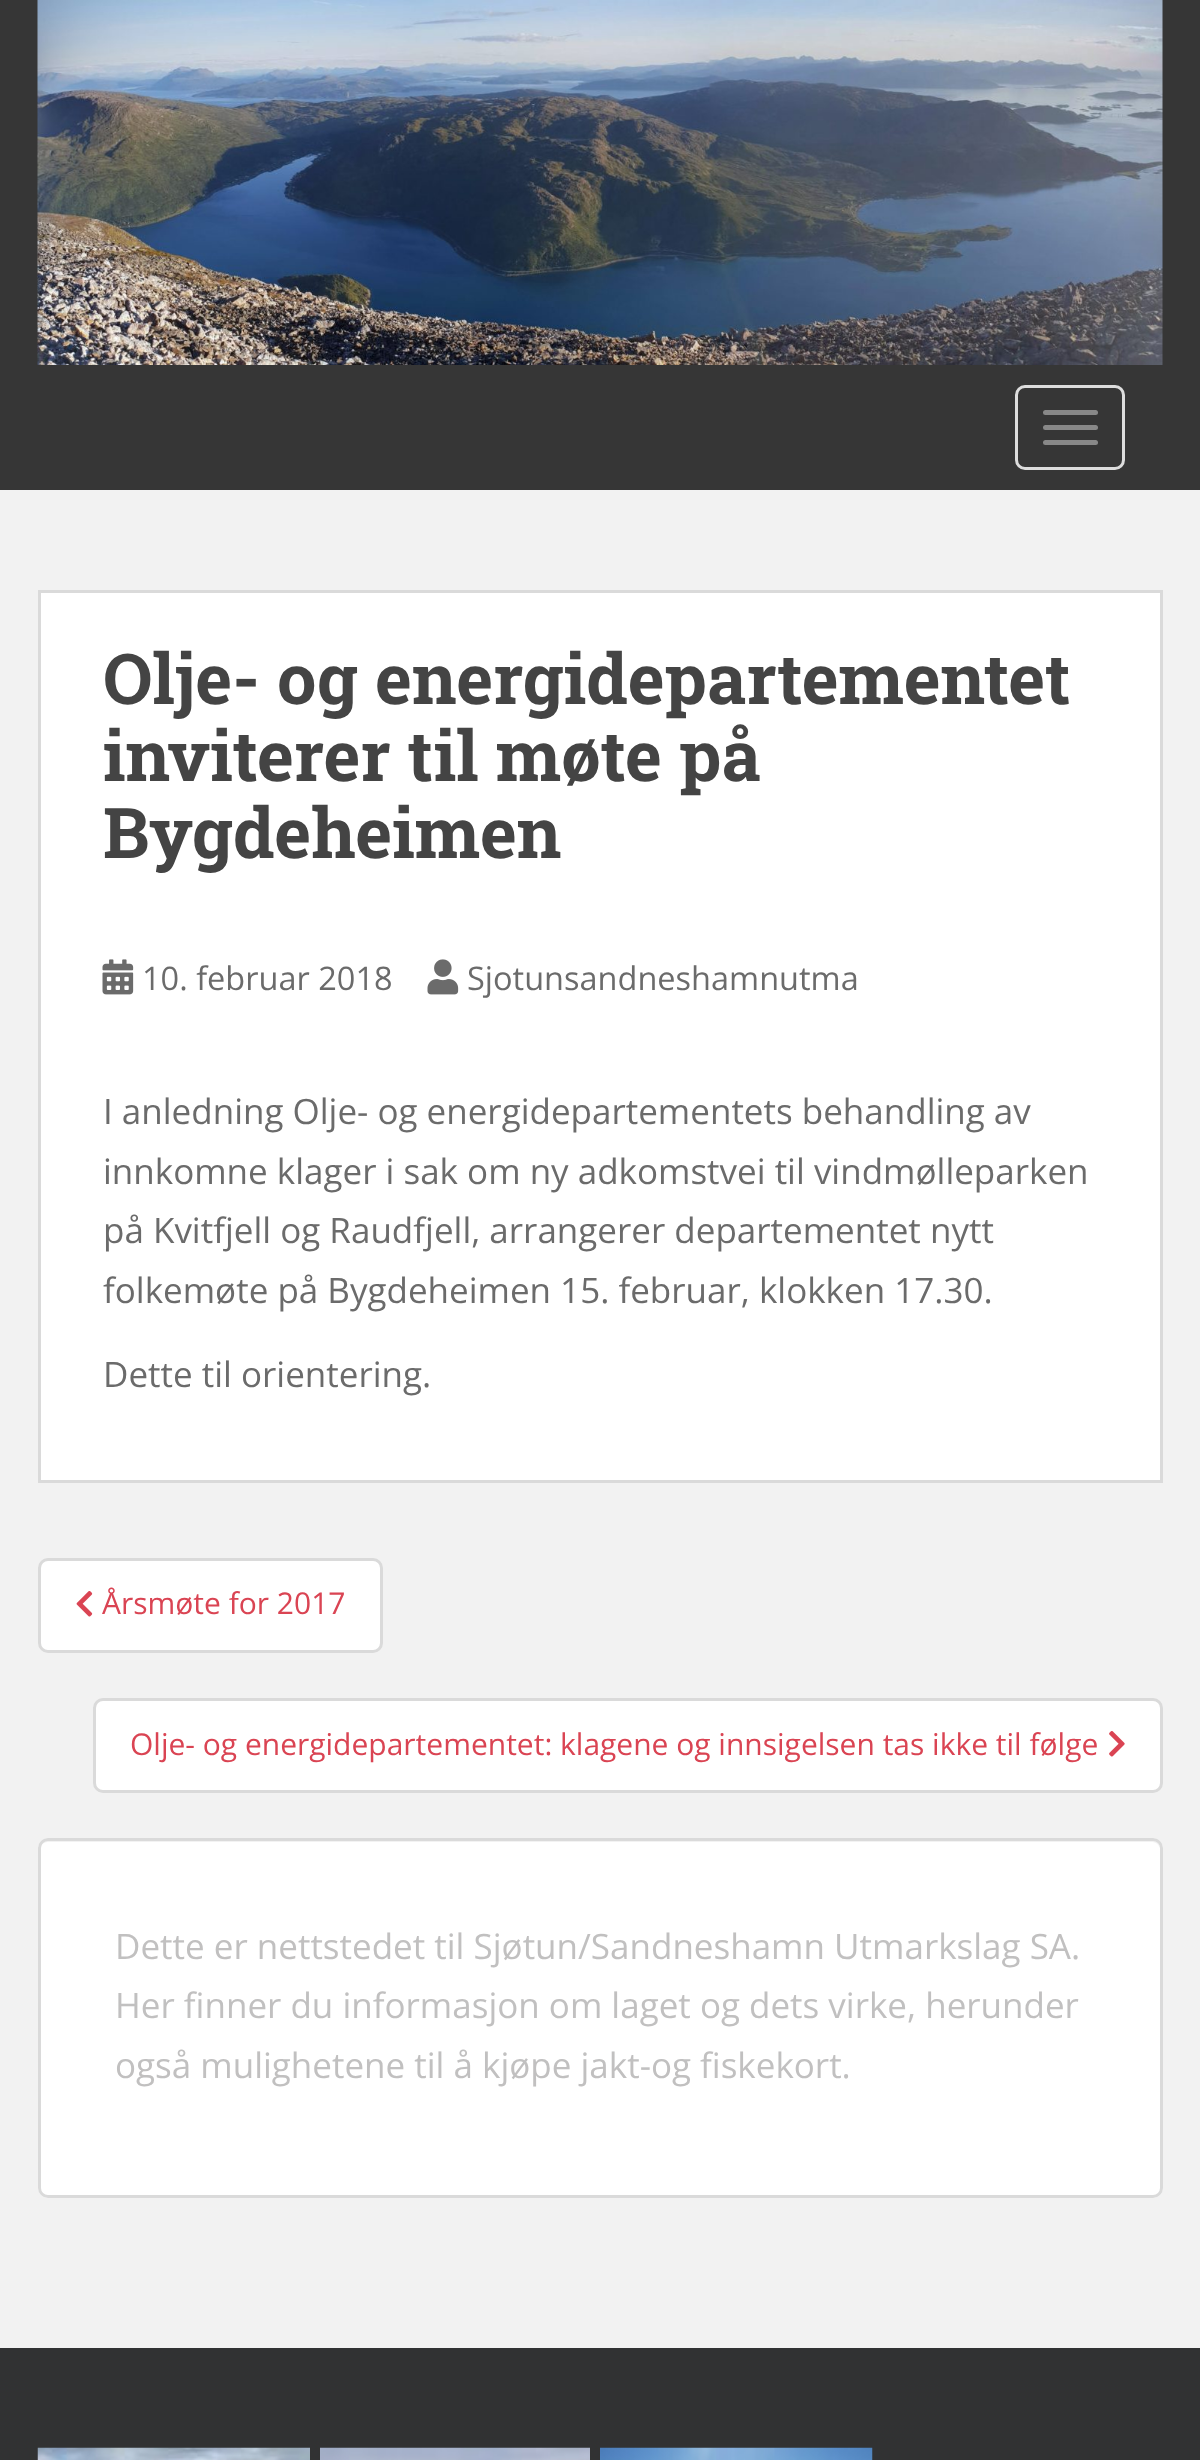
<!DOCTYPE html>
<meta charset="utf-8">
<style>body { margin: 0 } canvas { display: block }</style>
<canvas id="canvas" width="1200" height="2460"></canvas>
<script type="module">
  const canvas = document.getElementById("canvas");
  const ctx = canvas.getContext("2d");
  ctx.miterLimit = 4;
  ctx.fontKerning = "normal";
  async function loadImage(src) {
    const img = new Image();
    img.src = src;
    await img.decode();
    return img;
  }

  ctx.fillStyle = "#f2f2f2";
  ctx.fillRect(0, 0, 1200, 2460);
  ctx.fillStyle = "#363636";
  ctx.fillRect(0, 0, 1200, 490);
  ctx.drawImage(await loadImage("img1.png"), 37, 0, 1126, 365);
  ctx.beginPath();
  ctx.roundRect(1016.5, 386.5, 107, 82, 8.5);
  ctx.strokeStyle = "#dddddd";
  ctx.lineWidth = 3;
  ctx.stroke();
  ctx.fillStyle = "#888888";
  ctx.beginPath();
  ctx.roundRect(1043, 410, 55, 5, 2.5);
  ctx.fill();
  ctx.beginPath();
  ctx.roundRect(1043, 425, 55, 5, 2.5);
  ctx.fill();
  ctx.beginPath();
  ctx.roundRect(1043, 440, 55, 5, 2.5);
  ctx.fill();
  ctx.fillStyle = "#ffffff";
  ctx.beginPath();
  ctx.rect(39.5, 591.5, 1122, 890);
  ctx.fill();
  ctx.strokeStyle = "#dadada";
  ctx.stroke();
  ctx.font = "bold 70px Roboto Slab";
  ctx.fillStyle = "#444444";
  ctx.fillText("Olje- og energidepartementet", 103, 704);
  ctx.fillText("inviterer til møte på", 103, 781);
  ctx.fillText("Bygdeheimen", 103, 858);
  ctx.drawImage(await loadImage("img2.png"), 102, 959, 32, 36);
  ctx.font = "32.5px Open Sans";
  ctx.fillStyle = "#6b6b6b";
  ctx.fillText("10. februar 2018", 142, 990);
  ctx.drawImage(await loadImage("img3.png"), 427, 959, 32, 36);
  ctx.fillText("Sjotunsandneshamnutma", 467, 990);
  ctx.font = "35px Open Sans";
  ctx.fillText("I anledning Olje- og energidepartementets behandling av", 103, 1124);
  ctx.fillText("innkomne klager i sak om ny adkomstvei til vindmølleparken", 103, 1184);
  ctx.fillText("på Kvitfjell og Raudfjell, arrangerer departementet nytt", 103, 1243);
  ctx.fillText("folkemøte på Bygdeheimen 15. februar, klokken 17.30.", 103, 1303);
  ctx.fillText("Dette til orientering.", 103, 1387);
  ctx.fillStyle = "#ffffff";
  ctx.beginPath();
  ctx.roundRect(39.5, 1559.5, 342, 92, 8.5);
  ctx.fill();
  ctx.stroke();
  ctx.drawImage(await loadImage("img4.png"), 76, 1591, 17, 26);
  ctx.font = "30px Open Sans";
  ctx.fillStyle = "#da4453";
  ctx.fillText("Årsmøte for 2017", 102, 1614);
  ctx.fillStyle = "#ffffff";
  ctx.beginPath();
  ctx.roundRect(94.5, 1699.5, 1067, 92, 8.5);
  ctx.fill();
  ctx.stroke();
  ctx.fillStyle = "#da4453";
  ctx.fillText("Olje- og energidepartementet: klagene og innsigelsen tas ikke til følge", 130, 1755);
  ctx.drawImage(await loadImage("img5.png"), 1109, 1731, 16, 26);
  ctx.fillStyle = "#ffffff";
  ctx.beginPath();
  ctx.roundRect(38, 1838, 1125, 360, 10);
  ctx.fill();
  ctx.fillStyle = "#f2f2f2";
  ctx.beginPath();
  ctx.moveTo(48, 1842);
  ctx.lineTo(1152, 1842);
  ctx.bezierCurveTo(1157, 1842, 1160, 1846, 1160, 1850);
  ctx.bezierCurveTo(1160, 1845, 1158, 1840, 1152, 1840);
  ctx.lineTo(48, 1840);
  ctx.bezierCurveTo(42, 1840, 40, 1845, 40, 1850);
  ctx.bezierCurveTo(40, 1846, 43, 1842, 48, 1842);
  ctx.closePath();
  ctx.fill();
  ctx.beginPath();
  ctx.roundRect(39.5, 1839.5, 1122, 357, 8.5);
  ctx.stroke();
  ctx.font = "35px Open Sans";
  ctx.fillStyle = "#c1c0c0";
  ctx.fillText("Dette er nettstedet til Sjøtun/Sandneshamn Utmarkslag SA.", 115, 1959);
  ctx.fillText("Her finner du informasjon om laget og dets virke, herunder", 115, 2018);
  ctx.fillText("også mulighetene til å kjøpe jakt-og fiskekort.", 115, 2078);
  ctx.fillStyle = "#313233";
  ctx.fillRect(0, 2348, 1200, 112);
  ctx.drawImage(await loadImage("img6.png"), 37, 2447, 273, 13);
  ctx.drawImage(await loadImage("img7.png"), 320, 2447, 270, 13);
  ctx.drawImage(await loadImage("img8.png"), 600, 2447, 273, 13);
</script>
